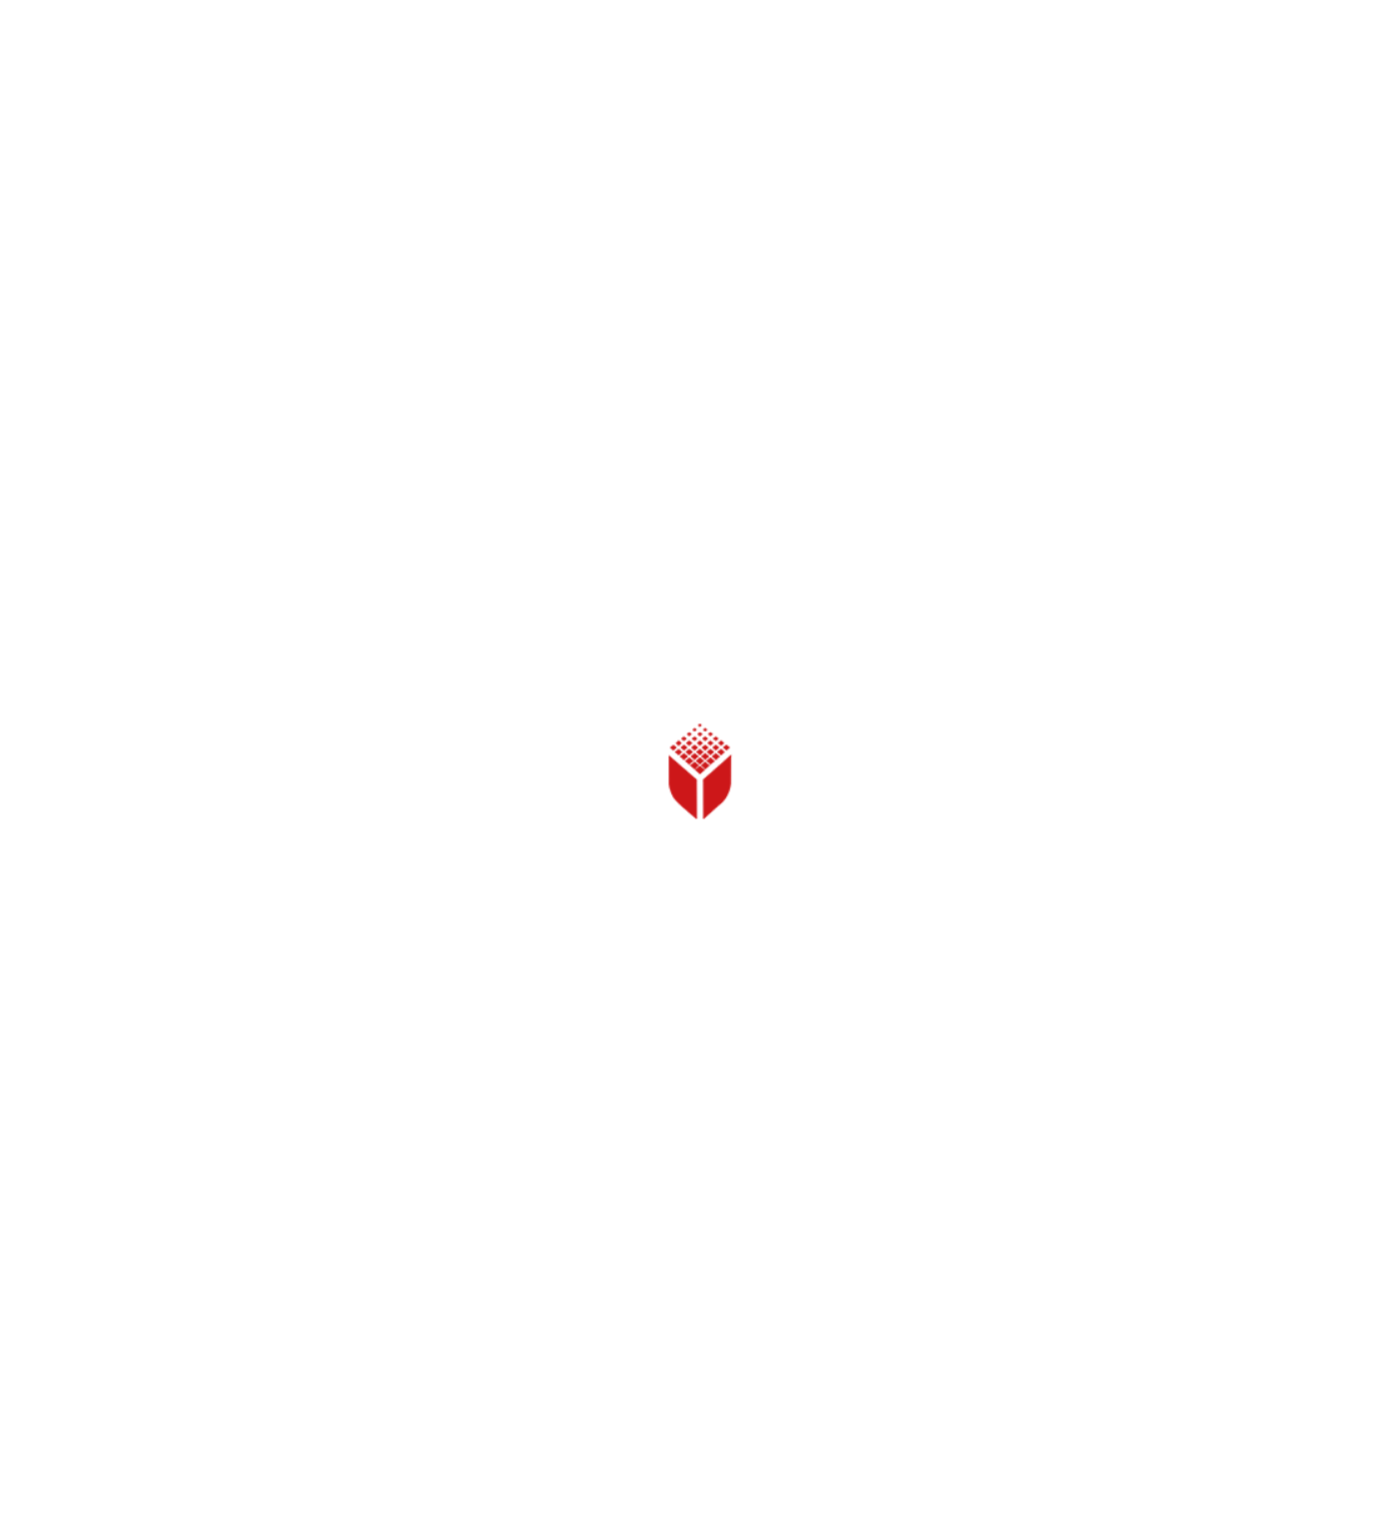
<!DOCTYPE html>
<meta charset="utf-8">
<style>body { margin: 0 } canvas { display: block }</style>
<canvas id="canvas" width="1377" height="1520"></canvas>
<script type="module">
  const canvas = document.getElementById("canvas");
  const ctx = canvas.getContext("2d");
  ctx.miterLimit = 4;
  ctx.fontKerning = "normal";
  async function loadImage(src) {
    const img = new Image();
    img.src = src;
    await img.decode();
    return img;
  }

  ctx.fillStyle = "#ffffff";
  ctx.fillRect(0, 0, 1377, 1520);
  ctx.drawImage(await loadImage("img1.png"), 668, 723, 65, 97);
</script>
